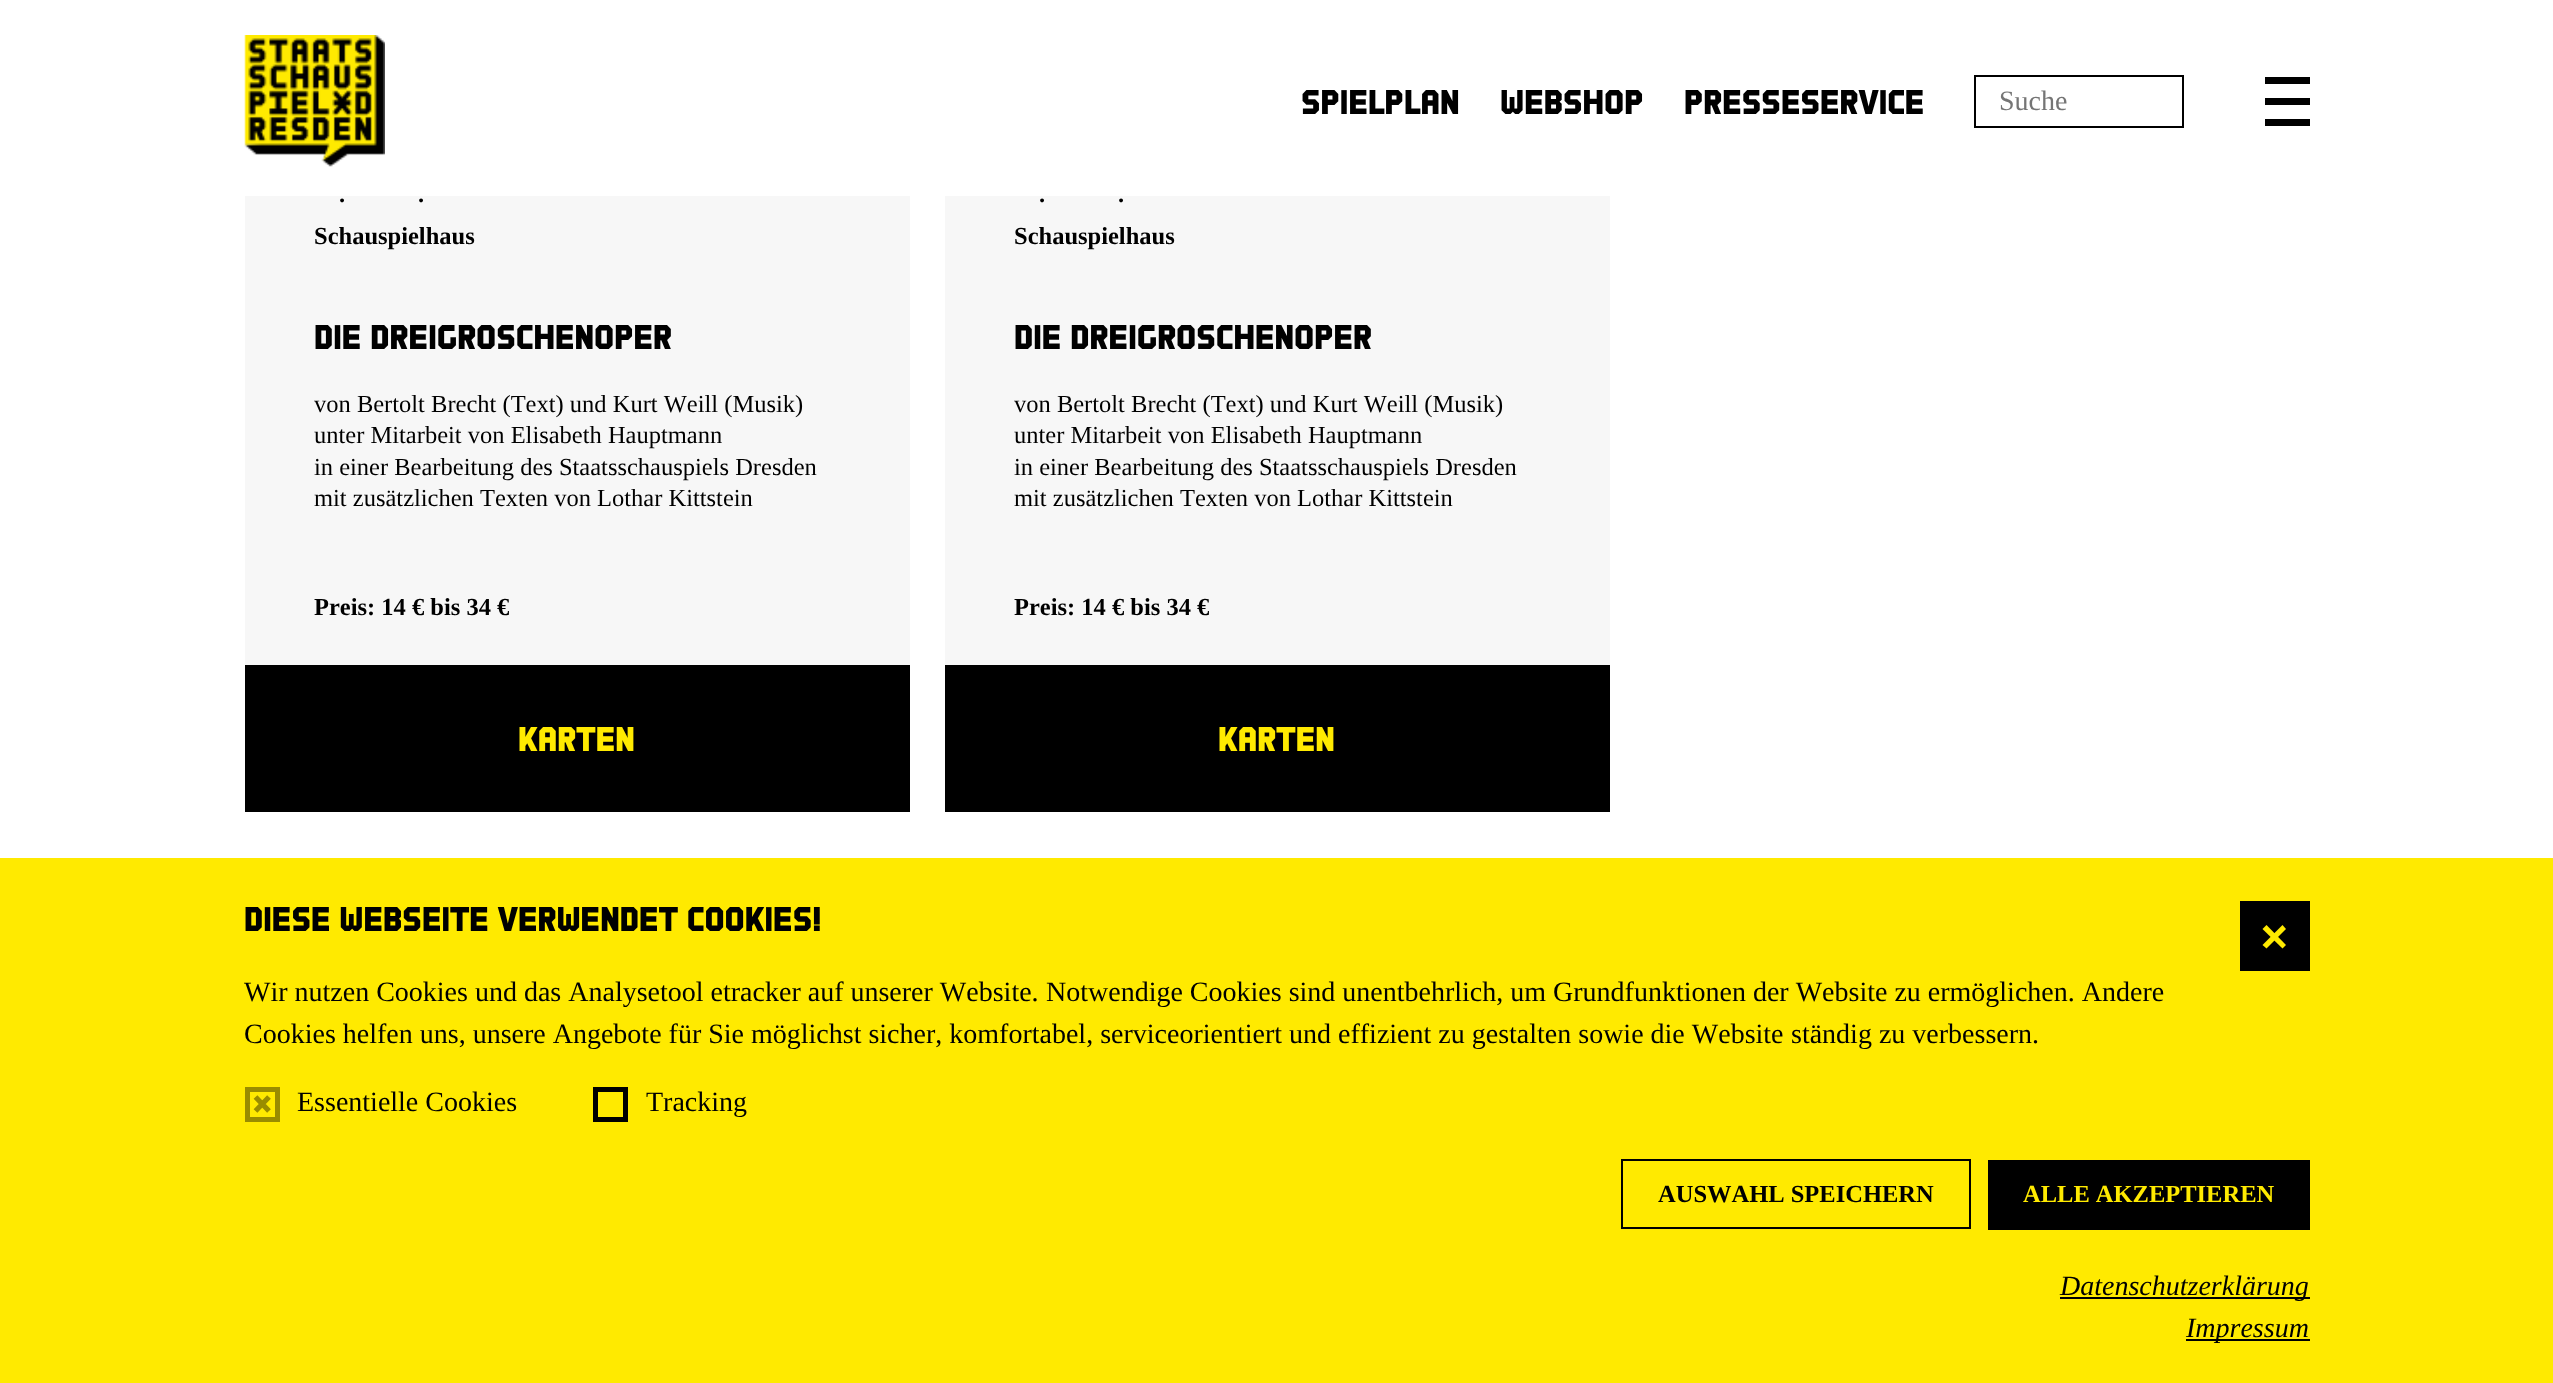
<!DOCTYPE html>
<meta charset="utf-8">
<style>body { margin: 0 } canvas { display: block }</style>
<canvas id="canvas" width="2553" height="1383"></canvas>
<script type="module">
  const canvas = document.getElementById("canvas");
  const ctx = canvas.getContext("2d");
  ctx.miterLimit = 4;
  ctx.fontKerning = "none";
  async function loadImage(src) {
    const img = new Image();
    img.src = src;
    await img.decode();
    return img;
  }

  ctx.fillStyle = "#ffffff";
  ctx.fillRect(0, 0, 2553, 1383);
  ctx.drawImage(await loadImage("img1.png"), 244, 35, 141, 132);
  ctx.font = "28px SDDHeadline";
  ctx.fillStyle = "#000000";
  ctx.fillText("Spielplan", 1301, 114);
  ctx.fillText("Webshop", 1500, 114);
  ctx.fillText("Presseservice", 1684, 114);
  ctx.strokeStyle = "#000000";
  ctx.lineWidth = 2;
  ctx.strokeRect(1975, 76, 208, 51);
  ctx.font = "28px Liberation Serif";
  ctx.fillStyle = "#757575";
  ctx.fillText("Suche", 1999, 110);
  ctx.fillStyle = "#000000";
  ctx.fillRect(2265, 77, 45, 7);
  ctx.fillRect(2265, 98, 45, 7);
  ctx.fillRect(2265, 119, 45, 7);
  ctx.fillStyle = "#f7f7f7";
  ctx.fillRect(245, 196, 665, 469);
  ctx.font = "bold 24.5px Liberation Serif";
  ctx.fillStyle = "#000000";
  ctx.fillText(".", 339, 202);
  ctx.fillText(".", 418, 202);
  ctx.fillText("Schauspielhaus", 314, 244);
  ctx.font = "28px SDDHeadline";
  ctx.fillText("Die Dreigroschenoper", 314, 349);
  ctx.font = "24.5px Liberation Serif";
  ctx.fillText("von Bertolt Brecht (Text) und Kurt Weill (Musik)", 314, 412);
  ctx.fillText("unter Mitarbeit von Elisabeth Hauptmann", 314, 443);
  ctx.fillText("in einer Bearbeitung des Staatsschauspiels Dresden", 314, 475);
  ctx.fillText("mit zusätzlichen Texten von Lothar Kittstein", 314, 506);
  ctx.font = "bold 24.5px Liberation Serif";
  ctx.fillText("Preis: 14 € bis 34 €", 314, 615);
  ctx.fillRect(245, 665, 665, 147);
  ctx.font = "28px SDDHeadline";
  ctx.fillStyle = "#ffea00";
  ctx.fillText("KARTEN", 518, 751);
  ctx.fillStyle = "#f7f7f7";
  ctx.fillRect(945, 196, 665, 469);
  ctx.font = "bold 24.5px Liberation Serif";
  ctx.fillStyle = "#000000";
  ctx.fillText(".", 1039, 202);
  ctx.fillText(".", 1118, 202);
  ctx.fillText("Schauspielhaus", 1014, 244);
  ctx.font = "28px SDDHeadline";
  ctx.fillText("Die Dreigroschenoper", 1014, 349);
  ctx.font = "24.5px Liberation Serif";
  ctx.fillText("von Bertolt Brecht (Text) und Kurt Weill (Musik)", 1014, 412);
  ctx.fillText("unter Mitarbeit von Elisabeth Hauptmann", 1014, 443);
  ctx.fillText("in einer Bearbeitung des Staatsschauspiels Dresden", 1014, 475);
  ctx.fillText("mit zusätzlichen Texten von Lothar Kittstein", 1014, 506);
  ctx.font = "bold 24.5px Liberation Serif";
  ctx.fillText("Preis: 14 € bis 34 €", 1014, 615);
  ctx.fillRect(945, 665, 665, 147);
  ctx.font = "28px SDDHeadline";
  ctx.fillStyle = "#ffea00";
  ctx.fillText("KARTEN", 1218, 751);
  ctx.fillRect(0, 858, 2553, 525);
  ctx.fillStyle = "#000000";
  ctx.fillText("Diese Webseite verwendet Cookies!", 244, 931);
  ctx.fillRect(2240, 901, 70, 70);
  ctx.fillStyle = "#ffea00";
  ctx.beginPath();
  ctx.moveTo(2262.5, 929);
  ctx.lineTo(2266.5, 925);
  ctx.lineTo(2286, 945);
  ctx.lineTo(2282.5, 948.5);
  ctx.closePath();
  ctx.fill();
  ctx.beginPath();
  ctx.moveTo(2262.5, 945);
  ctx.lineTo(2282.5, 925);
  ctx.lineTo(2286, 929);
  ctx.lineTo(2266.5, 948.5);
  ctx.closePath();
  ctx.fill();
  ctx.font = "28px Liberation Serif";
  ctx.fillStyle = "#000000";
  ctx.fillText("Wir nutzen Cookies und das Analysetool etracker auf unserer Website.", 244, 1001);
  ctx.fillText("Notwendige Cookies sind unentbehrlich, um Grundfunktionen der Website zu ermöglichen. Andere", 1046, 1001);
  ctx.fillText("Cookies helfen uns, unsere Angebote für Sie möglichst sicher, komfortabel, serviceorientiert und effizient zu gestalten sowie die Website", 244, 1043);
  ctx.fillText("ständig zu verbessern.", 1791, 1043);
  ctx.strokeStyle = "#998c00";
  ctx.lineWidth = 5;
  ctx.strokeRect(247.5, 1089.5, 30, 30);
  ctx.beginPath();
  ctx.moveTo(255.5, 1097);
  ctx.lineTo(269, 1111);
  ctx.moveTo(269, 1097);
  ctx.lineTo(255.5, 1111);
  ctx.lineWidth = 5.2;
  ctx.stroke();
  ctx.fillText("Essentielle Cookies", 297, 1111);
  ctx.strokeStyle = "#000000";
  ctx.lineWidth = 5;
  ctx.strokeRect(595.5, 1089.5, 30, 30);
  ctx.fillText("Tracking", 646, 1111);
  ctx.lineWidth = 2;
  ctx.strokeRect(1622, 1160, 348, 68);
  ctx.font = "bold 24.5px Liberation Serif";
  ctx.fillText("AUSWAHL SPEICHERN", 1658, 1202);
  ctx.fillRect(1988, 1160, 322, 70);
  ctx.fillStyle = "#ffea00";
  ctx.fillText("ALLE AKZEPTIEREN", 2023, 1202);
  ctx.fillStyle = "#000000";
  ctx.fillRect(2060, 1297, 250, 2);
  ctx.font = "italic 28px Liberation Serif";
  ctx.fillText("Datenschutzerklärung", 2060, 1295);
  ctx.fillRect(2186, 1339, 124, 2);
  ctx.fillText("Impressum", 2186, 1337);
</script>
